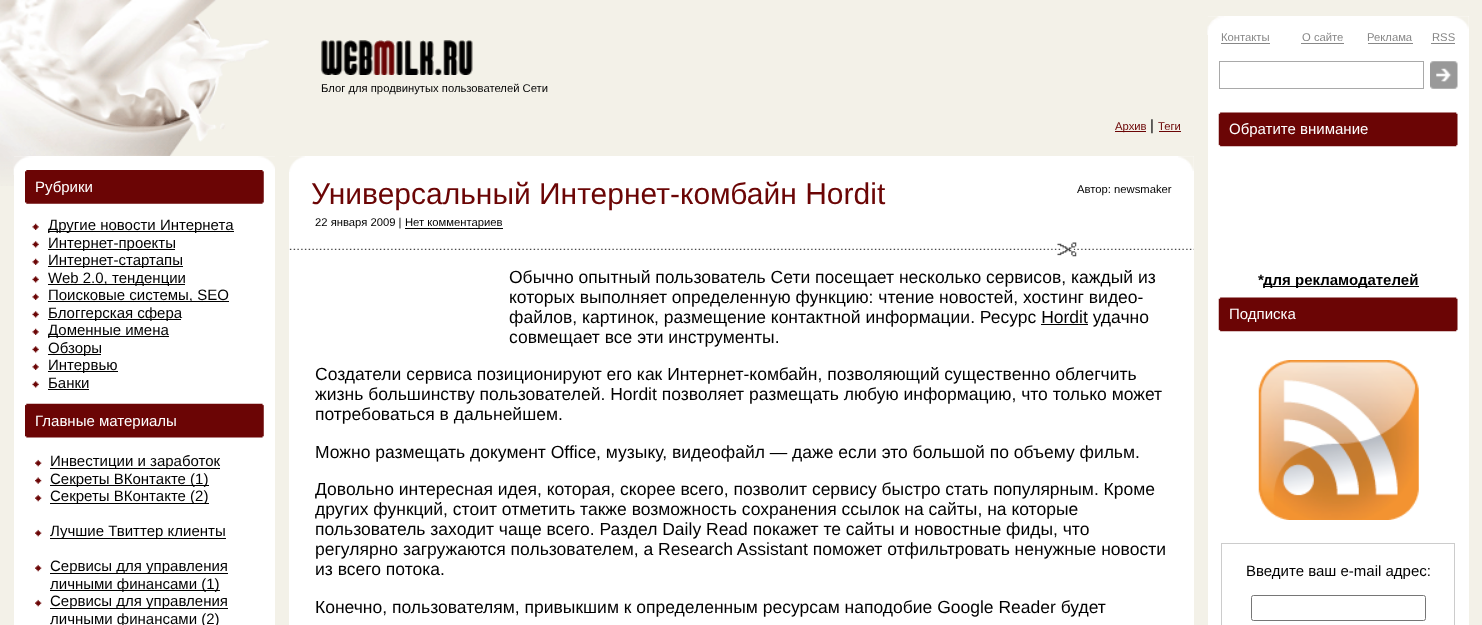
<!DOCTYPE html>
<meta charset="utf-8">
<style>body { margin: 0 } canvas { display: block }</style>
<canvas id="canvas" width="1482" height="625"></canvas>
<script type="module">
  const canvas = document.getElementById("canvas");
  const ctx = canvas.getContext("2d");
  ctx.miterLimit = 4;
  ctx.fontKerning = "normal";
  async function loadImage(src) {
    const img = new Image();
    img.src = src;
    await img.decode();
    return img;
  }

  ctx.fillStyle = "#f3f1e8";
  ctx.fillRect(0, 0, 1482, 625);
  ctx.drawImage(await loadImage("img1.png"), 0, 0, 269, 186);
  ctx.fillStyle = "#ffffff";
  ctx.fillRect(14, 156, 261, 469);
  ctx.drawImage(await loadImage("img2.png"), 13, 156, 262, 19);
  ctx.drawImage(await loadImage("img3.png"), 25, 170, 239, 34);
  ctx.font = "15px Liberation Sans";
  ctx.fillText("Рубрики", 35, 192);
  ctx.drawImage(await loadImage("img4.png"), 32, 223, 7, 7);
  ctx.fillStyle = "#000000";
  ctx.fillRect(48, 231, 186, 1);
  ctx.fillText("Другие новости Интернета", 48, 230);
  ctx.drawImage(await loadImage("img5.png"), 32, 241, 7, 7);
  ctx.fillRect(48, 249, 127, 1);
  ctx.fillText("Интернет-проекты", 48, 248);
  ctx.drawImage(await loadImage("img4.png"), 32, 258, 7, 7);
  ctx.fillRect(48, 266, 135, 1);
  ctx.fillText("Интернет-стартапы", 48, 265);
  ctx.drawImage(await loadImage("img5.png"), 32, 276, 7, 7);
  ctx.fillRect(48, 284, 137, 1);
  ctx.fillText("Web 2.0, тенденции", 48, 283);
  ctx.drawImage(await loadImage("img6.png"), 32, 293, 7, 7);
  ctx.fillRect(48, 301, 181, 1);
  ctx.fillText("Поисковые системы, SEO", 48, 300);
  ctx.drawImage(await loadImage("img5.png"), 32, 311, 7, 7);
  ctx.fillRect(48, 319, 133, 1);
  ctx.fillText("Блоггерская сфера", 48, 318);
  ctx.drawImage(await loadImage("img4.png"), 32, 328, 7, 7);
  ctx.fillRect(48, 336, 121, 1);
  ctx.fillText("Доменные имена", 48, 335);
  ctx.drawImage(await loadImage("img5.png"), 32, 346, 7, 7);
  ctx.fillRect(48, 354, 53, 1);
  ctx.fillText("Обзоры", 48, 353);
  ctx.drawImage(await loadImage("img4.png"), 32, 363, 7, 7);
  ctx.fillRect(48, 371, 70, 1);
  ctx.fillText("Интервью", 48, 370);
  ctx.drawImage(await loadImage("img5.png"), 32, 381, 7, 7);
  ctx.fillText("Банки", 48, 388);
  ctx.fillRect(48, 389, 41, 1);
  ctx.drawImage(await loadImage("img7.png"), 25, 403, 239, 35);
  ctx.fillStyle = "#ffffff";
  ctx.fillText("Главные материалы", 35, 426);
  ctx.drawImage(await loadImage("img8.png"), 35, 459, 7, 8);
  ctx.fillStyle = "#000000";
  ctx.fillRect(50, 468, 170, 1);
  ctx.fillText("Инвестиции и заработок", 50, 466);
  ctx.drawImage(await loadImage("img9.png"), 35, 477, 7, 7);
  ctx.fillRect(50, 485, 159, 1);
  ctx.fillText("Секреты ВКонтакте (1)", 50, 484);
  ctx.drawImage(await loadImage("img8.png"), 35, 494, 7, 8);
  ctx.fillRect(50, 503, 159, 1);
  ctx.fillText("Секреты ВКонтакте (2)", 50, 501);
  ctx.drawImage(await loadImage("img8.png"), 35, 529, 7, 8);
  ctx.fillRect(50, 538, 176, 1);
  ctx.fillText("Лучшие Твиттер клиенты", 50, 536);
  ctx.drawImage(await loadImage("img8.png"), 35, 564, 7, 8);
  ctx.fillRect(50, 573, 178, 1);
  ctx.fillText("Сервисы для управления", 50, 571);
  ctx.fillRect(50, 590, 170, 1);
  ctx.fillText("личными финансами (1)", 50, 589);
  ctx.drawImage(await loadImage("img8.png"), 35, 599, 7, 8);
  ctx.fillRect(50, 608, 178, 1);
  ctx.fillText("Сервисы для управления", 50, 606);
  ctx.fillText("личными финансами (2)", 50, 624);
  ctx.drawImage(await loadImage("img10.png"), 321, 40, 152, 35);
  ctx.font = "11.25px Liberation Sans";
  ctx.fillText("Блог для продвинутых пользователей Сети", 321, 92);
  ctx.fillStyle = "#6b0505";
  ctx.fillRect(1115, 131, 31, 1);
  ctx.fillText("Архив", 1115, 130);
  ctx.font = "15px Liberation Sans";
  ctx.fillStyle = "#000000";
  ctx.fillText("|", 1150, 130);
  ctx.font = "11.25px Liberation Sans";
  ctx.fillStyle = "#6b0505";
  ctx.fillText("Теги", 1158, 130);
  ctx.fillRect(1159, 131, 22, 1);
  ctx.fillStyle = "#ffffff";
  ctx.fillRect(289, 156, 905, 469);
  ctx.drawImage(await loadImage("img11.png"), 289, 156, 16, 16);
  ctx.drawImage(await loadImage("img12.png"), 1178, 156, 16, 15);
  ctx.font = "30px Liberation Sans";
  ctx.fillStyle = "#6b0505";
  ctx.fillText("Универсальный Интернет-комбайн Hordit", 311, 204);
  ctx.font = "11.25px Liberation Sans";
  ctx.fillStyle = "#000000";
  ctx.fillText("22 января 2009 |", 315, 226);
  ctx.fillRect(405, 228, 98, 1);
  ctx.fillText("Нет комментариев", 405, 226);
  ctx.fillText("Автор: newsmaker", 1077, 193);
  ctx.drawImage(await loadImage("img13.png"), 289, 248, 905, 2);
  ctx.drawImage(await loadImage("img14.png"), 1057, 242, 20, 15);
  ctx.font = "17.5px Liberation Sans";
  ctx.fillText("Обычно опытный пользователь Сети посещает несколько сервисов, каждый из", 509, 283);
  ctx.fillText("которых выполняет определенную функцию: чтение новостей, хостинг видео-", 509, 303);
  ctx.fillText("файлов, картинок, размещение контактной информации. Ресурс Hordit удачно", 509, 323);
  ctx.fillRect(1041, 324, 47, 1);
  ctx.fillText("совмещает все эти инструменты.", 509, 343);
  ctx.fillText("Создатели сервиса позиционируют его как Интернет-комбайн, позволяющий существенно облегчить", 315, 380);
  ctx.fillText("жизнь большинству пользователей. Hordit позволяет размещать любую информацию, что только может", 315, 400);
  ctx.fillText("потребоваться в дальнейшем.", 315, 420);
  ctx.fillText("Можно размещать документ Office, музыку, видеофайл — даже если это большой по объему фильм.", 315, 458);
  ctx.fillText("Довольно интересная идея, которая, скорее всего, позволит сервису быстро стать популярным. Кроме", 315, 495);
  ctx.fillText("других функций, стоит отметить также возможность сохранения ссылок на сайты, на которые", 315, 515);
  ctx.fillText("пользователь заходит чаще всего. Раздел Daily Read покажет те сайты и новостные фиды, что", 315, 535);
  ctx.fillText("регулярно загружаются пользователем, а Research Assistant поможет отфильтровать ненужные новости", 315, 555);
  ctx.fillText("из всего потока.", 315, 575);
  ctx.fillText("Конечно, пользователям, привыкшим к определенным ресурсам наподобие Google Reader будет", 315, 613);
  ctx.fillStyle = "#ffffff";
  ctx.fillRect(1208, 16, 261, 609);
  ctx.drawImage(await loadImage("img15.png"), 1207, 16, 262, 19);
  ctx.font = "11.25px Liberation Sans";
  ctx.fillStyle = "#878787";
  ctx.fillText("Контакты", 1221, 41);
  ctx.fillRect(1221, 43, 49, 1);
  ctx.fillText("О сайте", 1302, 41);
  ctx.fillRect(1301, 43, 43, 1);
  ctx.fillText("Реклама", 1367, 41);
  ctx.fillRect(1368, 43, 45, 1);
  ctx.fillText("RSS", 1432, 41);
  ctx.fillRect(1431, 43, 24, 1);
  ctx.strokeStyle = "#a9a9a9";
  ctx.strokeRect(1219.5, 61.5, 204, 27);
  ctx.drawImage(await loadImage("img16.png"), 1430, 61, 28, 28);
  ctx.drawImage(await loadImage("img17.png"), 1218, 112, 240, 35);
  ctx.font = "15px Liberation Sans";
  ctx.fillStyle = "#ffffff";
  ctx.fillText("Обратите внимание", 1229, 134);
  ctx.font = "bold 15px Liberation Sans";
  ctx.fillStyle = "#000000";
  ctx.fillText("*", 1258, 285);
  ctx.fillRect(1264, 286, 155, 1);
  ctx.fillText("для рекламодателей", 1263, 285);
  ctx.drawImage(await loadImage("img17.png"), 1218, 297, 240, 35);
  ctx.font = "15px Liberation Sans";
  ctx.fillStyle = "#ffffff";
  ctx.fillText("Подписка", 1229, 319);
  ctx.drawImage(await loadImage("img18.png"), 1258, 360, 161, 160);
  ctx.strokeStyle = "#cccccc";
  ctx.strokeRect(1221.5, 543.5, 233, 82);
  ctx.fillStyle = "#000000";
  ctx.fillText("Введите ваш e-mail адрес:", 1246, 576);
  ctx.beginPath();
  ctx.roundRect(1251.5, 595.5, 174, 25, 2);
  ctx.strokeStyle = "#767676";
  ctx.stroke();
</script>
